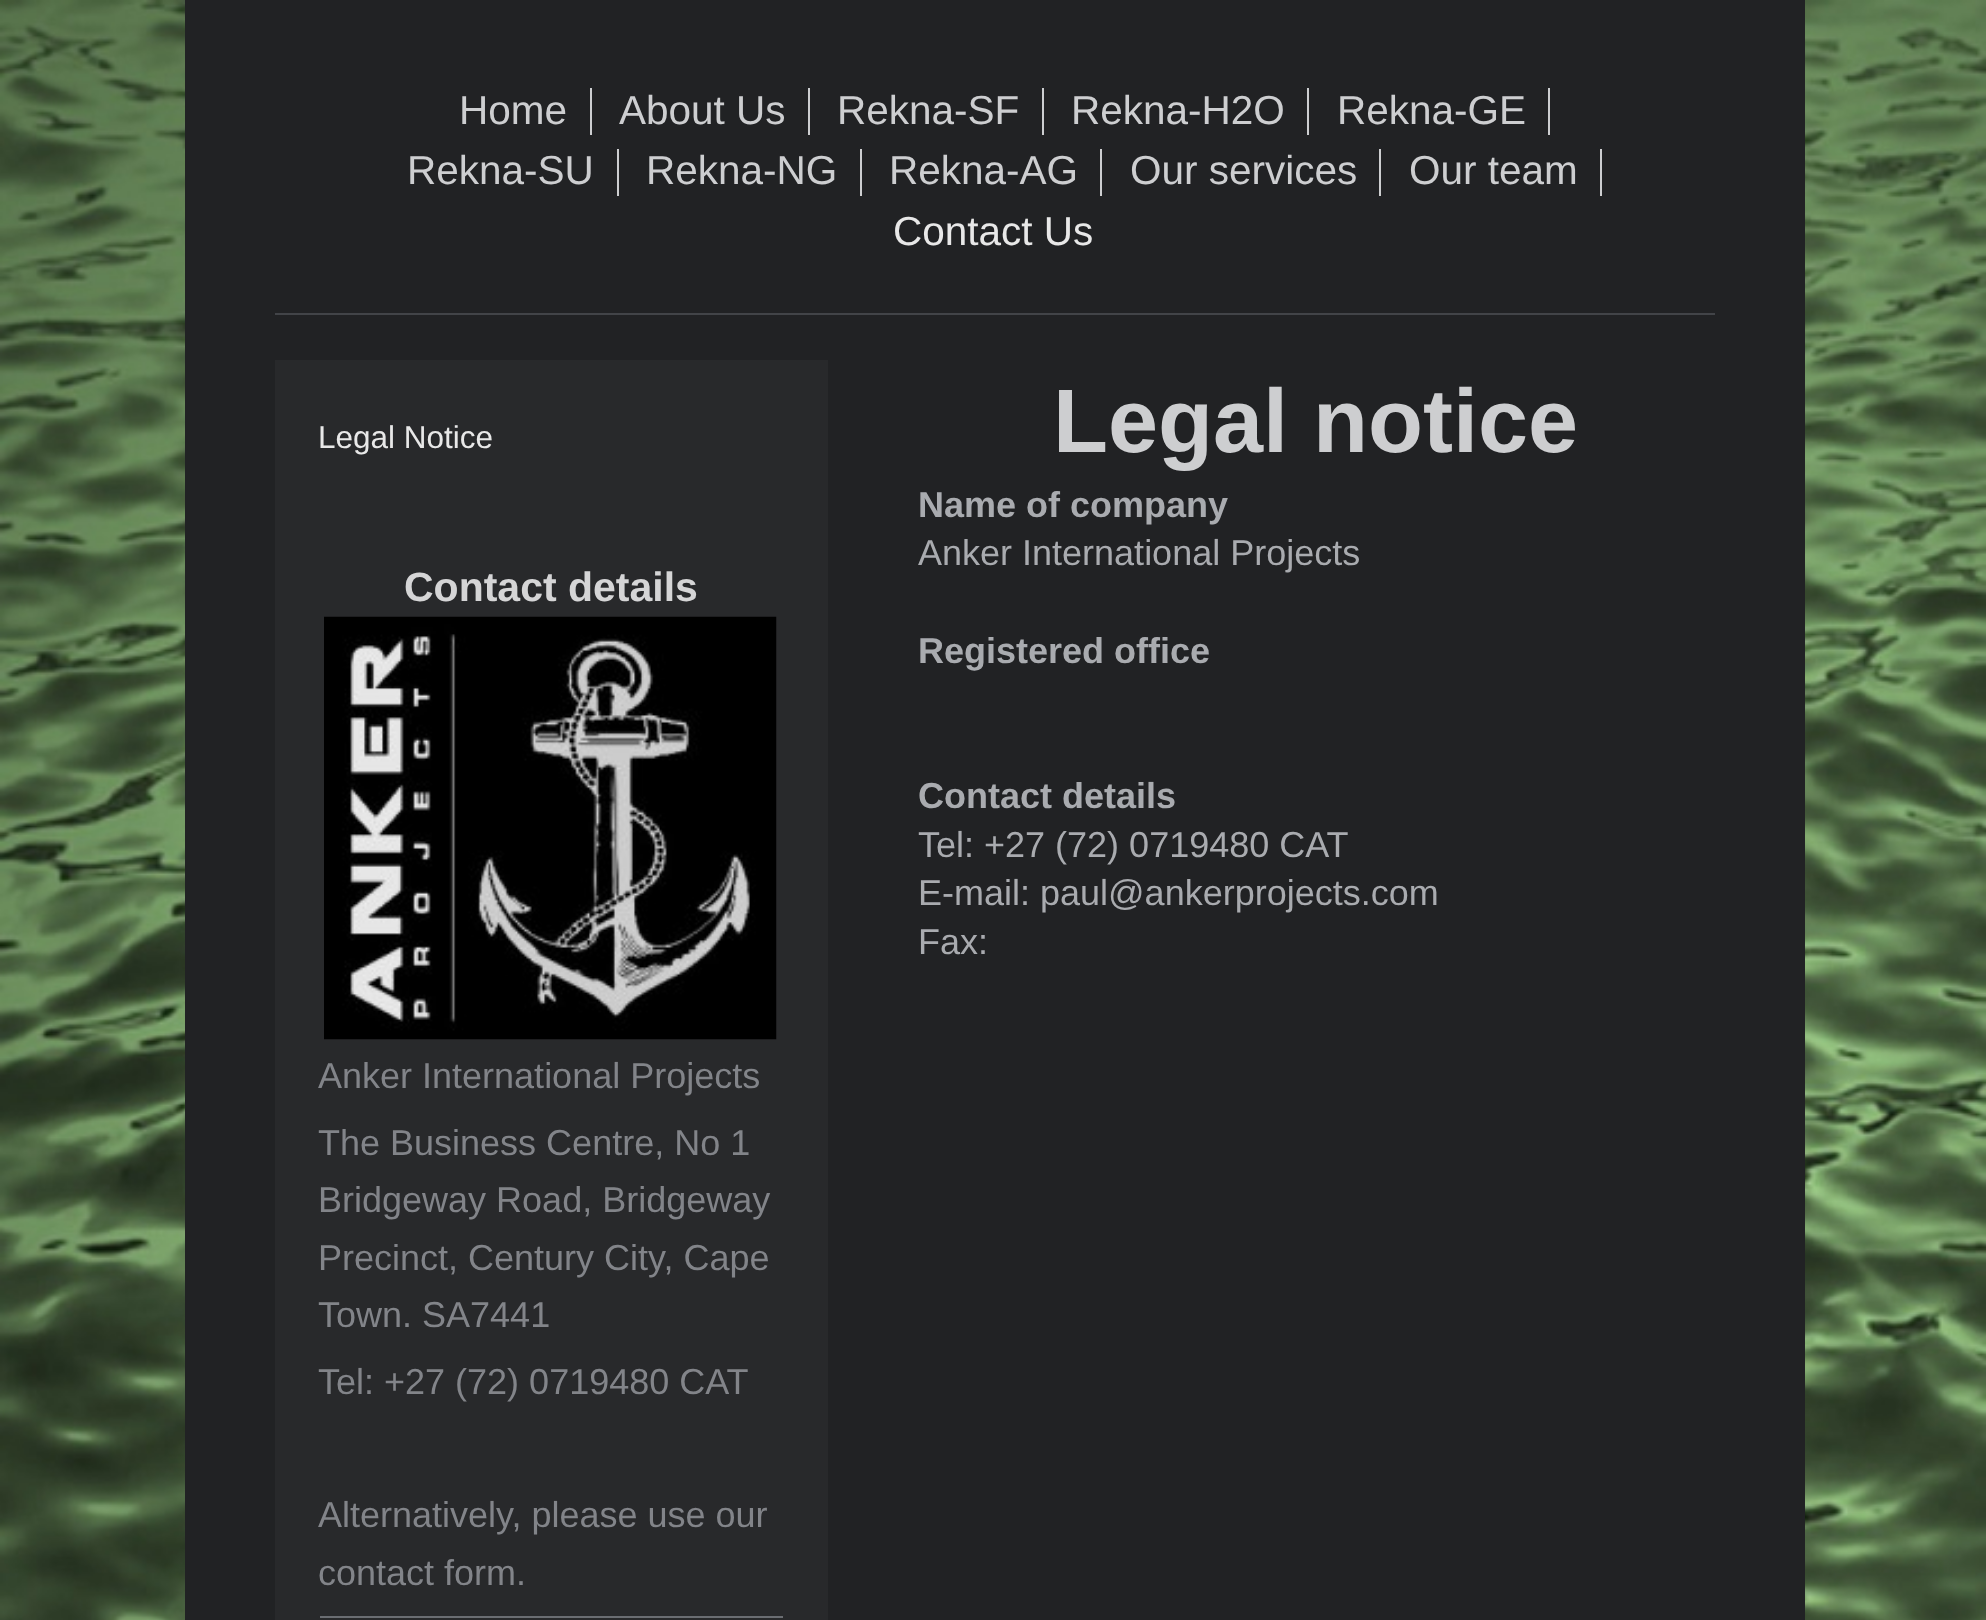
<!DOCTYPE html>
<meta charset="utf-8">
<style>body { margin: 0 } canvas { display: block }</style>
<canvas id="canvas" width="1986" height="1620"></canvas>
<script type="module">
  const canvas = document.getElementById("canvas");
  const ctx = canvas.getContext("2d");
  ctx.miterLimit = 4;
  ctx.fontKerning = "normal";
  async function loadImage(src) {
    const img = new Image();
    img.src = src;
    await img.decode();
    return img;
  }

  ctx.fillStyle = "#ffffff";
  ctx.fillRect(0, 0, 1986, 1620);
  ctx.drawImage(await loadImage("img1.png"), 0, 0, 1986, 1620);
  ctx.fillStyle = "#212224";
  ctx.fillRect(185, 0, 1620, 1620);
  ctx.fillStyle = "#424448";
  ctx.fillRect(275, 313, 1440, 2);
  ctx.fillStyle = "#cdced0";
  ctx.fillRect(590, 88, 2, 47);
  ctx.font = "40.5px Liberation Sans";
  ctx.fillText("Home", 459, 124);
  ctx.fillRect(808, 88, 2, 47);
  ctx.fillText("About Us", 619, 124);
  ctx.fillRect(1042, 88, 2, 47);
  ctx.fillText("Rekna-SF", 837, 124);
  ctx.fillRect(1307, 88, 2, 47);
  ctx.fillText("Rekna-H2O", 1071, 124);
  ctx.fillRect(1548, 88, 2, 47);
  ctx.fillText("Rekna-GE", 1337, 124);
  ctx.fillRect(617, 149, 2, 47);
  ctx.fillText("Rekna-SU", 407, 184);
  ctx.fillRect(860, 149, 2, 47);
  ctx.fillText("Rekna-NG", 646, 184);
  ctx.fillRect(1100, 149, 2, 47);
  ctx.fillText("Rekna-AG", 889, 184);
  ctx.fillRect(1379, 149, 2, 47);
  ctx.fillText("Our services", 1130, 184);
  ctx.fillRect(1600, 149, 2, 47);
  ctx.fillText("Our team", 1409, 184);
  ctx.fillStyle = "#e8e8e8";
  ctx.fillText("Contact Us", 893, 245);
  ctx.fillStyle = "#28292b";
  ctx.fillRect(275, 360, 553, 1260);
  ctx.font = "31.5px Liberation Sans";
  ctx.fillStyle = "#e8e8e8";
  ctx.fillText("Legal Notice", 318, 448);
  ctx.font = "bold 41px Liberation Sans";
  ctx.fillStyle = "#d5d5d6";
  ctx.fillText("Contact details", 404, 601);
  ctx.drawImage(await loadImage("img2.png"), 324, 616, 453, 424);
  ctx.font = "36px Liberation Sans";
  ctx.fillStyle = "#828489";
  ctx.fillText("Anker International Projects", 318, 1088);
  ctx.fillText("The Business Centre, No 1", 318, 1155);
  ctx.fillText("Bridgeway Road, Bridgeway", 318, 1212);
  ctx.fillText("Precinct, Century City, Cape", 318, 1270);
  ctx.fillText("Town. SA7441", 318, 1327);
  ctx.fillText("Tel: +27 (72) 0719480 CAT", 318, 1394);
  ctx.fillText("Alternatively, please use our", 318, 1527);
  ctx.fillText("contact form.", 318, 1585);
  ctx.fillStyle = "#6a6d72";
  ctx.fillRect(320, 1616, 463, 2);
  ctx.font = "bold 90px Liberation Sans";
  ctx.fillStyle = "#cdced0";
  ctx.fillText("Legal notice", 1053, 452);
  ctx.font = "bold 36px Liberation Sans";
  ctx.fillStyle = "#a9abaf";
  ctx.fillText("Name of company", 918, 517);
  ctx.font = "36px Liberation Sans";
  ctx.fillText("Anker International Projects", 918, 565);
  ctx.font = "bold 36px Liberation Sans";
  ctx.fillText("Registered office", 918, 663);
  ctx.fillText("Contact details", 918, 808);
  ctx.font = "36px Liberation Sans";
  ctx.fillText("Tel: +27 (72) 0719480 CAT", 918, 857);
  ctx.fillText("E-mail: paul@ankerprojects.com", 918, 905);
  ctx.fillText("Fax:", 918, 954);
</script>
